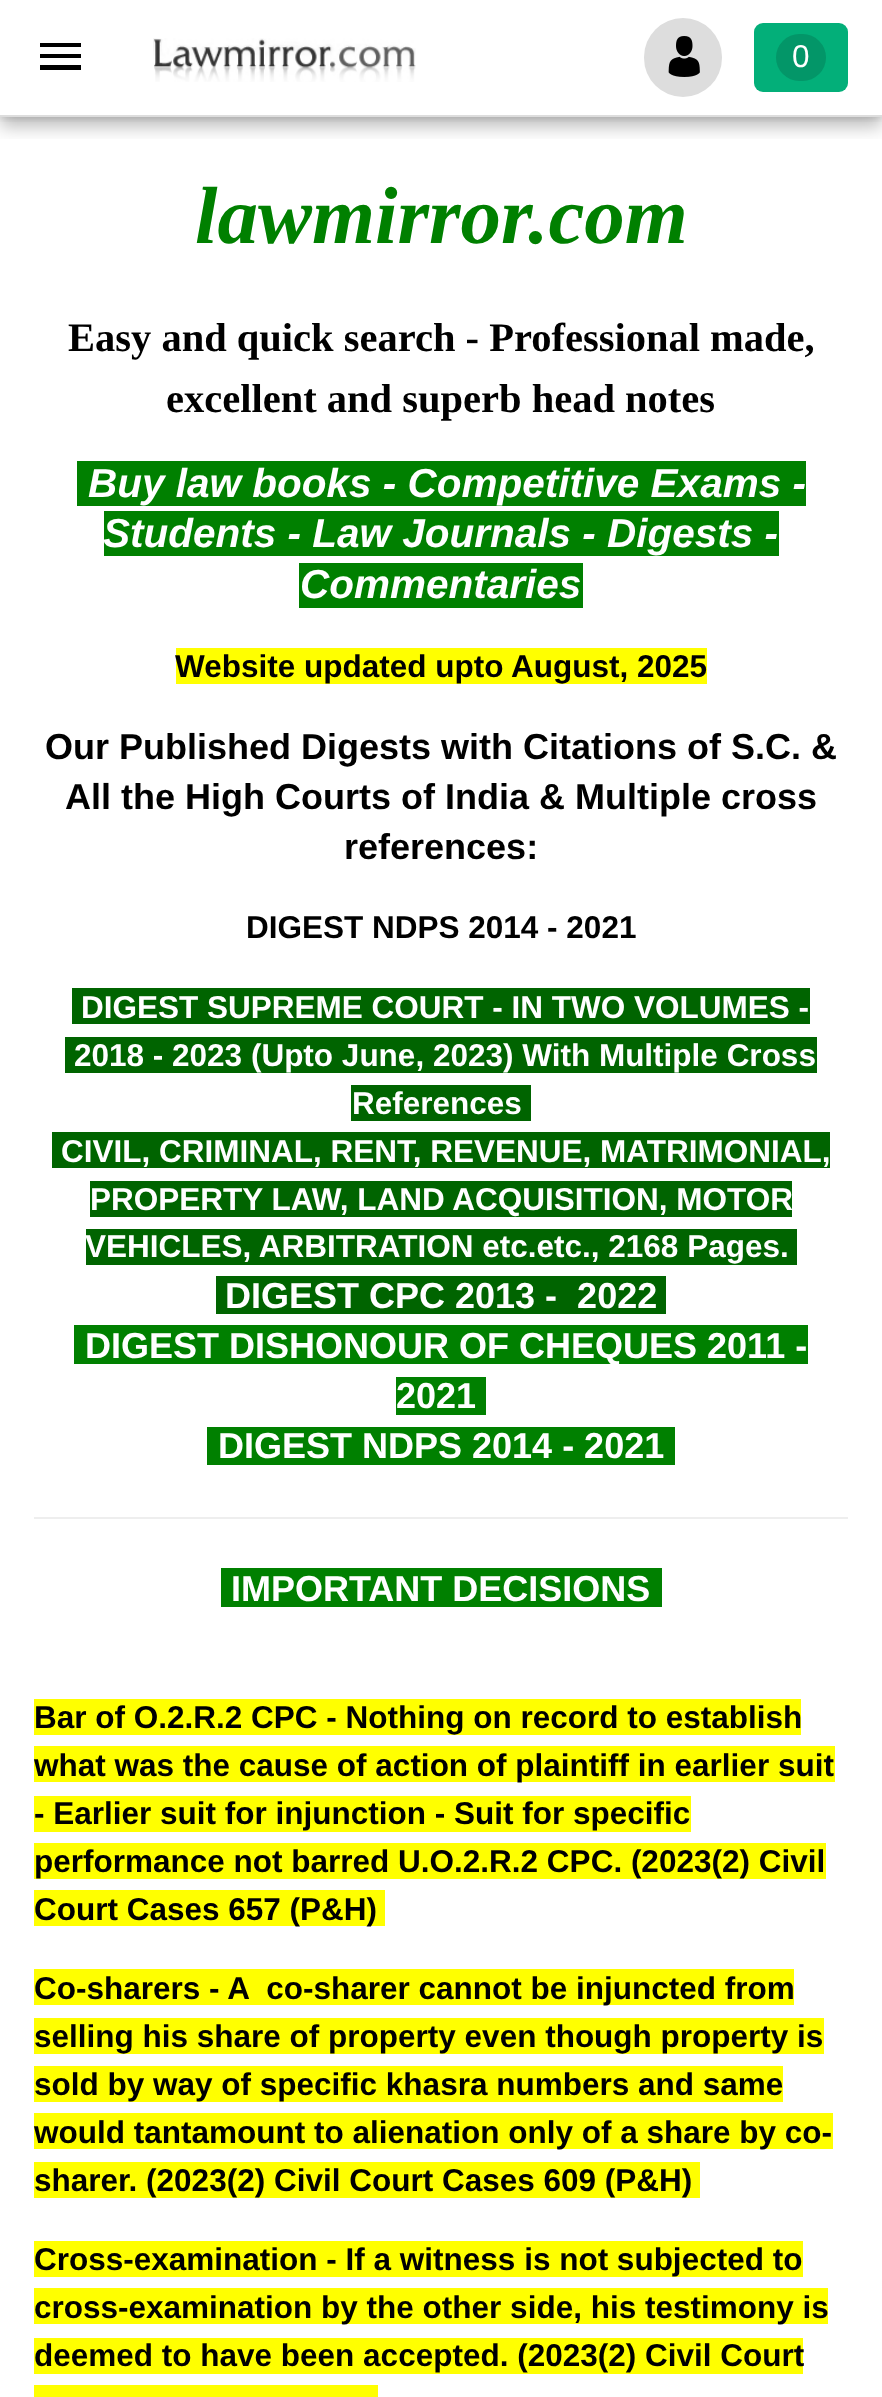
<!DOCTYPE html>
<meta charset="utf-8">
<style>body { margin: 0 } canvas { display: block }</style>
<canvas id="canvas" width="882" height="2397"></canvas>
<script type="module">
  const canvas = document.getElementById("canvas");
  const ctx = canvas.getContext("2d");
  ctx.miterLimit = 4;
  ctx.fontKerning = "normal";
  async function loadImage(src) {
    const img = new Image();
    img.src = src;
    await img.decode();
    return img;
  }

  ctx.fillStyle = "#ffffff";
  ctx.fillRect(0, 0, 882, 2397);
  ctx.save();
  ctx.beginPath();
  ctx.rect(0, 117, 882, 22);
  ctx.clip();
  ctx.fillStyle = "rgba(0, 0, 0, 0.28)";
  ctx.filter = "blur(9px)";
  ctx.beginPath();
  ctx.rect(0, 9, 882, 117);
  ctx.fill();
  ctx.filter = "none";
  ctx.restore();
  ctx.save();
  ctx.beginPath();
  ctx.rect(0, 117, 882, 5);
  ctx.clip();
  ctx.fillStyle = "rgba(0, 0, 0, 0.14)";
  ctx.filter = "blur(4.5px)";
  ctx.beginPath();
  ctx.rect(0, 0, 882, 117);
  ctx.fill();
  ctx.filter = "none";
  ctx.restore();
  ctx.fillStyle = "#dddddd";
  ctx.fillRect(0, 115, 882, 2);
  ctx.fillStyle = "#000000";
  ctx.beginPath();
  ctx.moveTo(40, 70);
  ctx.lineTo(81, 70);
  ctx.lineTo(81, 65);
  ctx.lineTo(40, 65);
  ctx.closePath();
  ctx.moveTo(40, 58);
  ctx.lineTo(81, 58);
  ctx.lineTo(81, 54);
  ctx.lineTo(40, 54);
  ctx.closePath();
  ctx.moveTo(40, 43);
  ctx.lineTo(40, 47);
  ctx.lineTo(81, 47);
  ctx.lineTo(81, 43);
  ctx.closePath();
  ctx.fill();
  ctx.drawImage(await loadImage("img1.png"), 153, 38, 263, 44);
  ctx.fillStyle = "#dddddd";
  ctx.beginPath();
  ctx.roundRect(644, 18, 78, 79, 39);
  ctx.fill();
  ctx.drawImage(await loadImage("img2.png"), 668, 36, 32, 41);
  ctx.fillStyle = "#03af79";
  ctx.beginPath();
  ctx.roundRect(754, 23, 94, 69, 9);
  ctx.fill();
  ctx.fillStyle = "#039668";
  ctx.beginPath();
  ctx.roundRect(776, 34, 50, 47, 23.5);
  ctx.fill();
  ctx.font = "31.5px Liberation Sans";
  ctx.fillStyle = "#ffffff";
  ctx.fillText("0", 792, 67);
  ctx.font = "italic bold 81px Liberation Serif";
  ctx.fillStyle = "#008000";
  ctx.fillText("lawmirror.com", 195, 243);
  ctx.font = "bold 40.5px Liberation Serif";
  ctx.fillStyle = "#000000";
  ctx.fillText("Easy and quick search - Professional made,", 68, 351);
  ctx.fillText("excellent and superb head notes", 166, 412);
  ctx.fillStyle = "#008000";
  ctx.fillRect(77, 461, 729, 45);
  ctx.font = "italic bold 40.5px Liberation Sans";
  ctx.fillStyle = "#ffffff";
  ctx.fillText("Buy law books - Competitive Exams -", 88, 497);
  ctx.fillStyle = "#008000";
  ctx.fillRect(104, 511, 675, 45);
  ctx.fillStyle = "#ffffff";
  ctx.fillText("Students - Law Journals - Digests -", 103, 547);
  ctx.fillStyle = "#008000";
  ctx.fillRect(299, 563, 284, 45);
  ctx.fillStyle = "#ffffff";
  ctx.fillText("Commentaries", 300, 598);
  ctx.fillStyle = "#ffff00";
  ctx.fillRect(176, 648, 531, 36);
  ctx.font = "bold 31.5px Liberation Sans";
  ctx.fillStyle = "#000000";
  ctx.fillText("Website updated upto August, 2025", 175, 677);
  ctx.font = "bold 36px Liberation Sans";
  ctx.fillText("Our Published Digests with Citations of S.C. &", 45, 759);
  ctx.fillText("All the High Courts of India & Multiple cross", 65, 809);
  ctx.fillText("references:", 344, 859);
  ctx.font = "bold 31.5px Liberation Sans";
  ctx.fillText("DIGEST NDPS 2014 - 2021", 246, 938);
  ctx.fillStyle = "#006400";
  ctx.fillRect(72, 988, 738, 36);
  ctx.fillStyle = "#ffffff";
  ctx.fillText("DIGEST SUPREME COURT - IN TWO VOLUMES -", 81, 1018);
  ctx.fillStyle = "#006400";
  ctx.fillRect(65, 1037, 752, 36);
  ctx.fillStyle = "#ffffff";
  ctx.fillText("2018 - 2023 (Upto June, 2023) With Multiple Cross", 74, 1066);
  ctx.fillStyle = "#006400";
  ctx.fillRect(351, 1085, 180, 36);
  ctx.fillStyle = "#ffffff";
  ctx.fillText("References", 352, 1114);
  ctx.fillStyle = "#006400";
  ctx.fillRect(52, 1132, 778, 36);
  ctx.fillStyle = "#ffffff";
  ctx.fillText("CIVIL, CRIMINAL, RENT, REVENUE, MATRIMONIAL,", 61, 1162);
  ctx.fillStyle = "#006400";
  ctx.fillRect(90, 1181, 702, 36);
  ctx.fillStyle = "#ffffff";
  ctx.fillText("PROPERTY LAW, LAND ACQUISITION, MOTOR", 90, 1210);
  ctx.fillStyle = "#006400";
  ctx.fillRect(86, 1229, 711, 36);
  ctx.fillStyle = "#ffffff";
  ctx.fillText("VEHICLES, ARBITRATION etc.etc., 2168 Pages.", 85, 1257);
  ctx.fillStyle = "#006400";
  ctx.fillRect(216, 1276, 450, 38);
  ctx.font = "bold 36px Liberation Sans";
  ctx.fillStyle = "#ffffff";
  ctx.fillText("DIGEST CPC 2013 -  2022", 225, 1308);
  ctx.fillStyle = "#008000";
  ctx.fillRect(74, 1325, 734, 39);
  ctx.fillStyle = "#ffffff";
  ctx.fillText("DIGEST DISHONOUR OF CHEQUES 2011 -", 85, 1358);
  ctx.fillStyle = "#008000";
  ctx.fillRect(396, 1377, 90, 38);
  ctx.fillStyle = "#ffffff";
  ctx.fillText("2021", 396, 1408);
  ctx.fillStyle = "#008000";
  ctx.fillRect(207, 1427, 468, 38);
  ctx.fillStyle = "#ffffff";
  ctx.fillText("DIGEST NDPS 2014 - 2021", 218, 1458);
  ctx.fillStyle = "#eeeeee";
  ctx.fillRect(34, 1517, 814, 2);
  ctx.fillStyle = "#008000";
  ctx.fillRect(221, 1568, 441, 39);
  ctx.fillStyle = "#ffffff";
  ctx.fillText("IMPORTANT DECISIONS", 231, 1601);
  ctx.fillStyle = "#ffff00";
  ctx.fillRect(34, 1699, 767, 36);
  ctx.font = "bold 31.5px Liberation Sans";
  ctx.fillStyle = "#000000";
  ctx.fillText("Bar of O.2.R.2 CPC - Nothing on record to establish", 34, 1728);
  ctx.fillStyle = "#ffff00";
  ctx.fillRect(34, 1746, 801, 36);
  ctx.fillStyle = "#000000";
  ctx.fillText("what was the cause of action of plaintiff in earlier suit", 34, 1776);
  ctx.fillStyle = "#ffff00";
  ctx.fillRect(34, 1796, 657, 36);
  ctx.fillStyle = "#000000";
  ctx.fillText("- Earlier suit for injunction - Suit for specific", 34, 1824);
  ctx.fillStyle = "#ffff00";
  ctx.fillRect(34, 1843, 792, 36);
  ctx.fillStyle = "#000000";
  ctx.fillText("performance not barred U.O.2.R.2 CPC. (2023(2) Civil", 34, 1872);
  ctx.fillStyle = "#ffff00";
  ctx.fillRect(34, 1890, 351, 36);
  ctx.fillStyle = "#000000";
  ctx.fillText("Court Cases 657 (P&H)", 34, 1920);
  ctx.fillStyle = "#ffff00";
  ctx.fillRect(34, 1969, 760, 36);
  ctx.fillStyle = "#000000";
  ctx.fillText("Co-sharers - A  co-sharer cannot be injuncted from", 34, 1999);
  ctx.fillStyle = "#ffff00";
  ctx.fillRect(34, 2018, 790, 36);
  ctx.fillStyle = "#000000";
  ctx.fillText("selling his share of property even though property is", 34, 2047);
  ctx.fillStyle = "#ffff00";
  ctx.fillRect(34, 2066, 749, 36);
  ctx.fillStyle = "#000000";
  ctx.fillText("sold by way of specific khasra numbers and same", 34, 2095);
  ctx.fillStyle = "#ffff00";
  ctx.fillRect(34, 2113, 799, 36);
  ctx.fillStyle = "#000000";
  ctx.fillText("would tantamount to alienation only of a share by co-", 34, 2143);
  ctx.fillStyle = "#ffff00";
  ctx.fillRect(34, 2162, 666, 36);
  ctx.fillStyle = "#000000";
  ctx.fillText("sharer. (2023(2) Civil Court Cases 609 (P&H)", 34, 2191);
  ctx.fillStyle = "#ffff00";
  ctx.fillRect(34, 2241, 769, 36);
  ctx.fillStyle = "#000000";
  ctx.fillText("Cross-examination - If a witness is not subjected to", 34, 2270);
  ctx.fillStyle = "#ffff00";
  ctx.fillRect(34, 2288, 794, 36);
  ctx.fillStyle = "#000000";
  ctx.fillText("cross-examination by the other side, his testimony is", 34, 2318);
  ctx.fillStyle = "#ffff00";
  ctx.fillRect(34, 2338, 769, 36);
  ctx.fillStyle = "#000000";
  ctx.fillText("deemed to have been accepted. (2023(2) Civil Court", 34, 2366);
  ctx.fillStyle = "#ffff00";
  ctx.fillRect(34, 2385, 344, 12);
</script>
